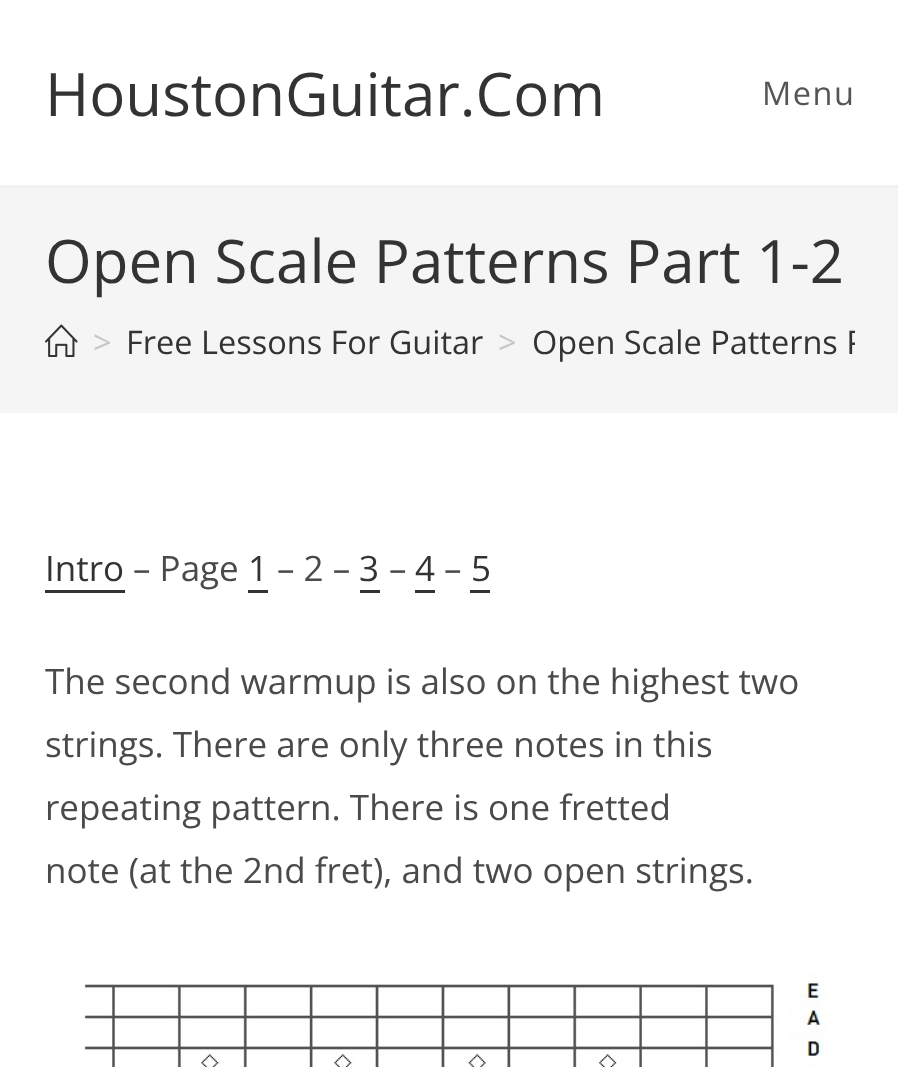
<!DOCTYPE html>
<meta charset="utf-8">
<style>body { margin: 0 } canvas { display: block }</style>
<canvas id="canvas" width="898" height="1067"></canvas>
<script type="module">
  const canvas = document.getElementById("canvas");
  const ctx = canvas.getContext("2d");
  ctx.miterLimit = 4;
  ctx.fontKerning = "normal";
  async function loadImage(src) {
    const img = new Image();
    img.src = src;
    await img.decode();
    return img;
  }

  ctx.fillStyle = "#ffffff";
  ctx.fillRect(0, 0, 898, 1067);
  ctx.fillStyle = "#f1f1f1";
  ctx.fillRect(0, 185, 898, 3);
  ctx.font = "60px Open Sans";
  ctx.fillStyle = "#333333";
  ctx.fillText("HoustonGuitar.Com", 45, 116);
  ctx.letterSpacing = "1.5px";
  ctx.font = "32.5px Open Sans";
  ctx.fillStyle = "#555555";
  ctx.fillText("Menu", 762, 105);
  ctx.fillStyle = "#f5f5f5";
  ctx.fillRect(0, 188, 898, 225);
  ctx.letterSpacing = "0px";
  ctx.font = "60px Open Sans";
  ctx.fillStyle = "#333333";
  ctx.fillText("Open Scale Patterns Part 1-2", 45, 283);
  ctx.drawImage(await loadImage("img1.png"), 45, 324, 33, 33);
  ctx.font = "32.5px Open Sans";
  ctx.fillStyle = "#c6c6c6";
  ctx.fillText(">", 93, 354);
  ctx.fillStyle = "#333333";
  ctx.fillText("Free Lessons For Guitar", 126, 354);
  ctx.fillStyle = "#c6c6c6";
  ctx.fillText(">", 498, 354);
  ctx.save();
  ctx.beginPath();
  ctx.rect(45, 303, 810, 80);
  ctx.clip();
  ctx.fillStyle = "#333333";
  ctx.fillText("Open Scale Patterns P", 532, 354);
  ctx.restore();
  ctx.font = "35px Open Sans";
  ctx.fillStyle = "#333333";
  ctx.fillText("Intro", 45, 581);
  ctx.fillRect(45, 590, 80, 3);
  ctx.fillStyle = "#4a4a4a";
  ctx.fillText("– Page", 133, 581);
  ctx.fillStyle = "#333333";
  ctx.fillText("1", 248, 581);
  ctx.fillRect(248, 590, 20, 3);
  ctx.fillStyle = "#4a4a4a";
  ctx.fillText("– 2 –", 277, 581);
  ctx.fillStyle = "#333333";
  ctx.fillText("3", 359, 581);
  ctx.fillRect(360, 590, 20, 3);
  ctx.fillStyle = "#4a4a4a";
  ctx.fillText("–", 389, 581);
  ctx.fillStyle = "#333333";
  ctx.fillText("4", 415, 581);
  ctx.fillRect(415, 590, 20, 3);
  ctx.fillStyle = "#4a4a4a";
  ctx.fillText("–", 444, 581);
  ctx.fillStyle = "#333333";
  ctx.fillText("5", 471, 581);
  ctx.fillRect(470, 590, 20, 3);
  ctx.fillStyle = "#4a4a4a";
  ctx.fillText("The second warmup is also on the highest two", 45, 694);
  ctx.fillText("strings. There are only three notes in this", 45, 757);
  ctx.fillText("repeating pattern. There is one fretted", 45, 820);
  ctx.fillText("note (at the 2nd fret), and two open strings.", 45, 883);
  ctx.drawImage(await loadImage("img2.png"), 84, 973, 746, 94);
</script>
